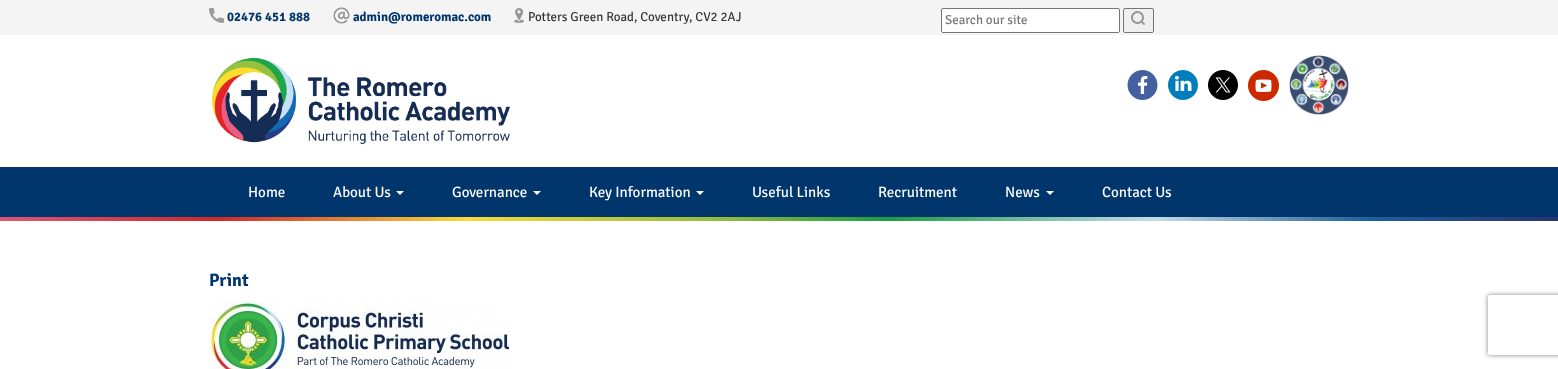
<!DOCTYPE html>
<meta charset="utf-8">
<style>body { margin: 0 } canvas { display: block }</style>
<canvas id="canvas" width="1558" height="369"></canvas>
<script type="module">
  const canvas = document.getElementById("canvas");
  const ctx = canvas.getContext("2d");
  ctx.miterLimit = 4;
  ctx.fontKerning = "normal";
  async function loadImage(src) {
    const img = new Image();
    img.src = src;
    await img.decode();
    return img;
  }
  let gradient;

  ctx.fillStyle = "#ffffff";
  ctx.fillRect(0, 0, 1558, 369);
  ctx.fillStyle = "#f4f4f4";
  ctx.fillRect(0, 0, 1558, 35);
  ctx.drawImage(await loadImage("img1.png"), 209, 8, 15, 15);
  ctx.font = "bold 13px Signika Negative";
  ctx.fillStyle = "#00366c";
  ctx.fillText("02476 451 888", 227, 21);
  ctx.drawImage(await loadImage("img2.png"), 333, 7, 17, 17);
  ctx.fillText("admin@romeromac.com", 353, 21);
  ctx.drawImage(await loadImage("img3.png"), 514, 8, 10, 15);
  ctx.font = "13px Signika Negative";
  ctx.fillStyle = "#333333";
  ctx.fillText("Potters Green Road, Coventry, CV2 2AJ", 528, 21);
  ctx.fillStyle = "#ffffff";
  ctx.beginPath();
  ctx.roundRect(941.5, 8.5, 178, 24, 1.5);
  ctx.fill();
  ctx.strokeStyle = "#767676";
  ctx.stroke();
  ctx.fillStyle = "#757575";
  ctx.fillText("Search our site", 945, 24);
  ctx.fillStyle = "#efefef";
  ctx.beginPath();
  ctx.roundRect(1123.5, 8.5, 30, 24, 1.5);
  ctx.fill();
  ctx.stroke();
  ctx.drawImage(await loadImage("img4.png"), 1131, 11, 14, 14);
  ctx.drawImage(await loadImage("img5.png"), 211, 57, 299, 88);
  ctx.drawImage(await loadImage("img6.png"), 1127, 70, 31, 30);
  ctx.drawImage(await loadImage("img7.png"), 1168, 70, 30, 30);
  ctx.drawImage(await loadImage("img8.png"), 1208, 70, 30, 30);
  ctx.drawImage(await loadImage("img9.png"), 1248, 70, 31, 31);
  ctx.drawImage(await loadImage("img10.png"), 1289, 55, 60, 60);
  ctx.fillStyle = "#00366c";
  ctx.fillRect(0, 167, 1558, 50);
  ctx.font = "15px Signika Negative";
  ctx.fillStyle = "#ffffff";
  ctx.fillText("Home", 248, 197);
  ctx.fillText("About Us", 333, 197);
  ctx.beginPath();
  ctx.moveTo(396, 191);
  ctx.lineTo(404, 191);
  ctx.lineTo(400, 195);
  ctx.closePath();
  ctx.fill();
  ctx.fillText("Governance", 452, 197);
  ctx.beginPath();
  ctx.moveTo(533, 191);
  ctx.lineTo(541, 191);
  ctx.lineTo(537, 195);
  ctx.closePath();
  ctx.fill();
  ctx.fillText("Key Information", 589, 197);
  ctx.beginPath();
  ctx.moveTo(696, 191);
  ctx.lineTo(704, 191);
  ctx.lineTo(700, 195);
  ctx.closePath();
  ctx.fill();
  ctx.fillText("Useful Links", 752, 197);
  ctx.fillText("Recruitment", 878, 197);
  ctx.fillText("News", 1005, 197);
  ctx.beginPath();
  ctx.moveTo(1046, 191);
  ctx.lineTo(1054, 191);
  ctx.lineTo(1050, 195);
  ctx.closePath();
  ctx.fill();
  ctx.fillText("Contact Us", 1102, 197);
  gradient = ctx.createLinearGradient(0, 219, 1558, 218);
  gradient.addColorStop(0, "#d75879");
  gradient.addColorStop(0.14, "#cf282c");
  gradient.addColorStop(0.3, "#f9da3a");
  gradient.addColorStop(0.47, "#8cba3f");
  gradient.addColorStop(0.57, "#1c9b47");
  gradient.addColorStop(0.74, "#c4dbe9");
  gradient.addColorStop(0.88, "#1e5f9b");
  gradient.addColorStop(1, "#293370");
  ctx.fillStyle = gradient;
  ctx.fillRect(0, 217, 1558, 4);
  ctx.font = "bold 18px Signika Negative";
  ctx.fillStyle = "#00366c";
  ctx.fillText("Print", 209, 286);
  ctx.drawImage(await loadImage("img11.png"), 209, 301, 300, 68);
  ctx.save();
  ctx.beginPath();
  ctx.moveTo(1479, 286);
  ctx.lineTo(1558, 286);
  ctx.lineTo(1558, 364);
  ctx.lineTo(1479, 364);
  ctx.closePath();
  ctx.moveTo(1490, 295);
  ctx.lineTo(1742, 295);
  ctx.bezierCurveTo(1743, 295, 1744, 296, 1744, 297);
  ctx.lineTo(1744, 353);
  ctx.bezierCurveTo(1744, 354, 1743, 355, 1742, 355);
  ctx.lineTo(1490, 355);
  ctx.bezierCurveTo(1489, 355, 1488, 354, 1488, 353);
  ctx.lineTo(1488, 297);
  ctx.bezierCurveTo(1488, 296, 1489, 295, 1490, 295);
  ctx.closePath();
  ctx.clip("evenodd");
  ctx.fillStyle = "#808080";
  ctx.filter = "blur(2.5px)";
  ctx.beginPath();
  ctx.roundRect(1488, 295, 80, 60, 2);
  ctx.fill();
  ctx.filter = "none";
  ctx.restore();
</script>
